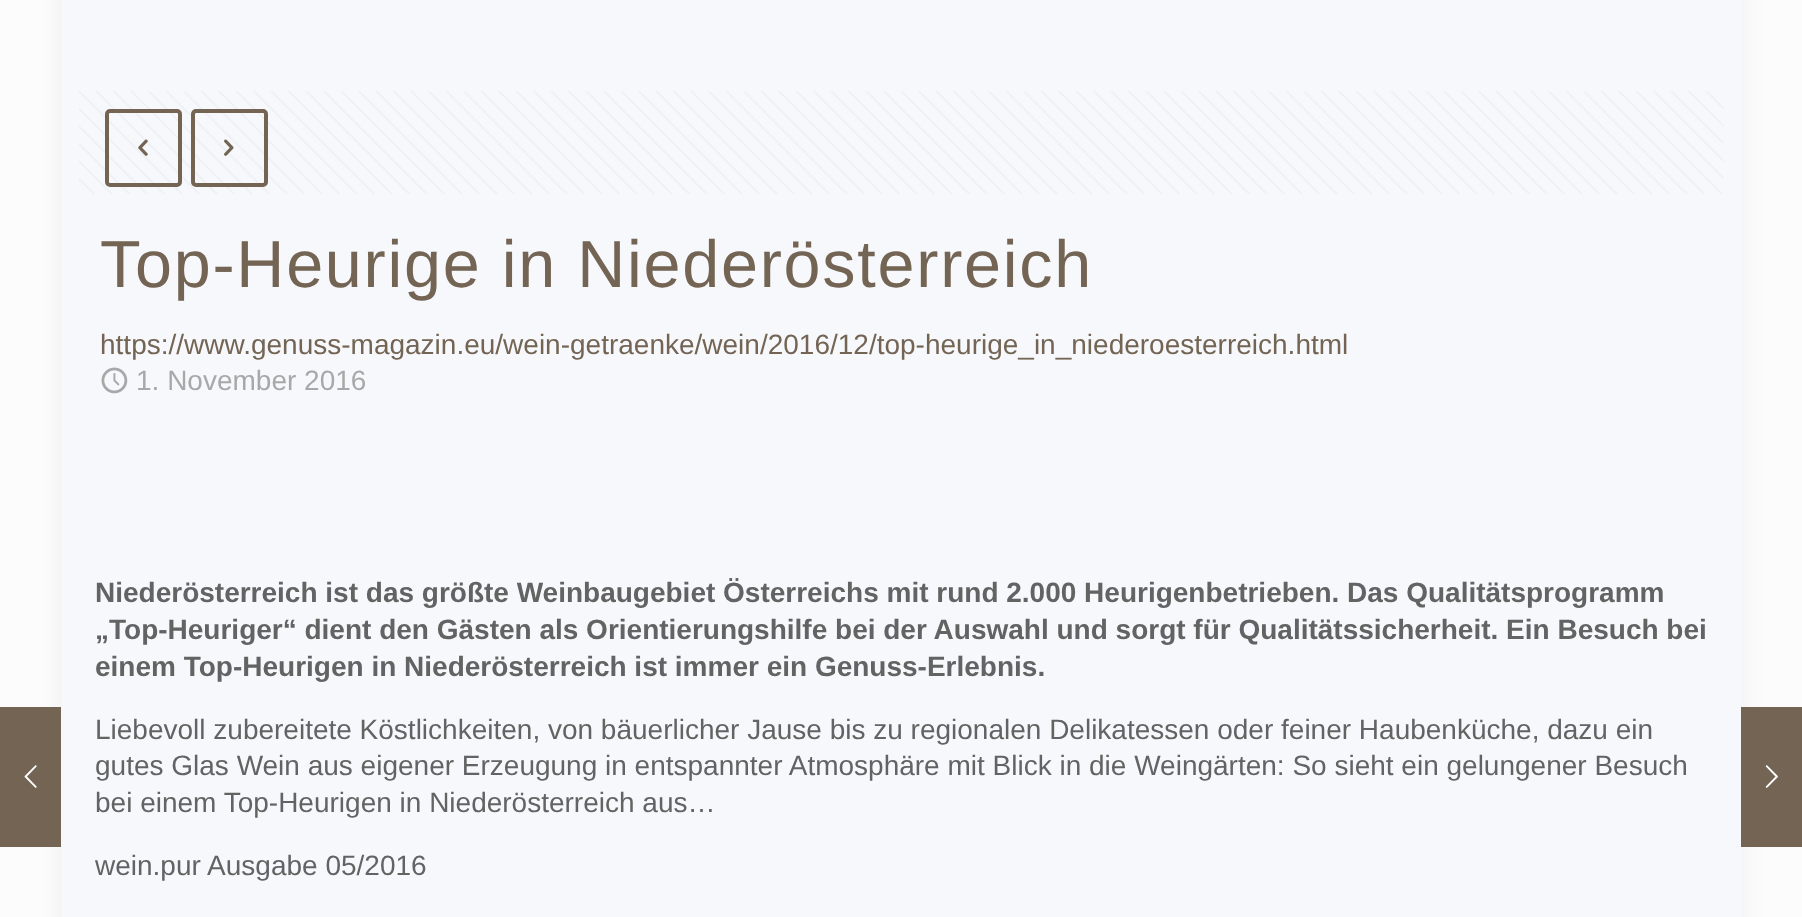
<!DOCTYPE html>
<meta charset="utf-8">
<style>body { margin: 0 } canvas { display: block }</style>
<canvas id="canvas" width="1802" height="917"></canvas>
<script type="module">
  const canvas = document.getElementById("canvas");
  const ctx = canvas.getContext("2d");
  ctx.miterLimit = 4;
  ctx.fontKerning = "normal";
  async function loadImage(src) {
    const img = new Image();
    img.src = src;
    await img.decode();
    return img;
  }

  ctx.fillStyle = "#fcfcfc";
  ctx.fillRect(0, 0, 1802, 917);
  ctx.fillStyle = "rgba(0, 0, 0, 0.06)";
  ctx.filter = "blur(13px)";
  ctx.beginPath();
  ctx.rect(61, -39, 1680, 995);
  ctx.fill();
  ctx.filter = "none";
  ctx.fillStyle = "#736454";
  ctx.fillRect(0, 707, 61, 140);
  ctx.drawImage(await loadImage("img1.png"), 24, 765, 13, 23);
  ctx.fillStyle = "#f6f8fb";
  ctx.fillRect(61, 0, 1680, 917);
  ctx.drawImage(await loadImage("img2.png"), 79, 91, 1645, 103);
  ctx.beginPath();
  ctx.roundRect(107, 111, 73, 74, 3);
  ctx.strokeStyle = "#736454";
  ctx.lineWidth = 4;
  ctx.stroke();
  ctx.drawImage(await loadImage("img3.png"), 138, 139, 10, 17);
  ctx.beginPath();
  ctx.roundRect(193, 111, 73, 74, 3);
  ctx.stroke();
  ctx.drawImage(await loadImage("img4.png"), 224, 139, 10, 17);
  ctx.letterSpacing = "1.75px";
  ctx.font = "66.5px Liberation Sans";
  ctx.fillStyle = "#736454";
  ctx.fillText("Top-Heurige in Niederösterreich", 100, 287);
  ctx.letterSpacing = "0px";
  ctx.font = "28px Liberation Sans";
  ctx.fillText("https://www.genuss-magazin.eu/wein-getraenke/wein/2016/12/top-heurige_in_niederoesterreich.html", 100, 354);
  ctx.drawImage(await loadImage("img5.png"), 101, 367, 27, 27);
  ctx.fillStyle = "#a8a8a8";
  ctx.fillText("1. November 2016", 136, 390);
  ctx.font = "bold 28px Liberation Sans";
  ctx.fillStyle = "#636363";
  ctx.fillText("Niederösterreich ist das größte Weinbaugebiet Österreichs mit rund 2.000 Heurigenbetrieben. Das Qualitätsprogramm", 95, 602);
  ctx.fillText("„Top-Heuriger“ dient den Gästen als Orientierungshilfe bei der Auswahl und sorgt für Qualitätssicherheit. Ein Besuch bei", 95, 639);
  ctx.fillText("einem Top-Heurigen in Niederösterreich ist immer ein Genuss-Erlebnis.", 95, 676);
  ctx.font = "28px Liberation Sans";
  ctx.fillText("Liebevoll zubereitete Köstlichkeiten, von bäuerlicher Jause bis zu regionalen Delikatessen oder feiner Haubenküche, dazu ein", 95, 739);
  ctx.fillText("gutes Glas Wein aus eigener Erzeugung in entspannter Atmosphäre mit Blick in die Weingärten: So sieht ein gelungener Besuch", 95, 775);
  ctx.fillText("bei einem Top-Heurigen in Niederösterreich aus…", 95, 812);
  ctx.fillText("wein.pur Ausgabe 05/2016", 95, 875);
  ctx.fillStyle = "#736454";
  ctx.fillRect(1741, 707, 61, 140);
  ctx.drawImage(await loadImage("img6.png"), 1765, 765, 13, 23);
</script>
